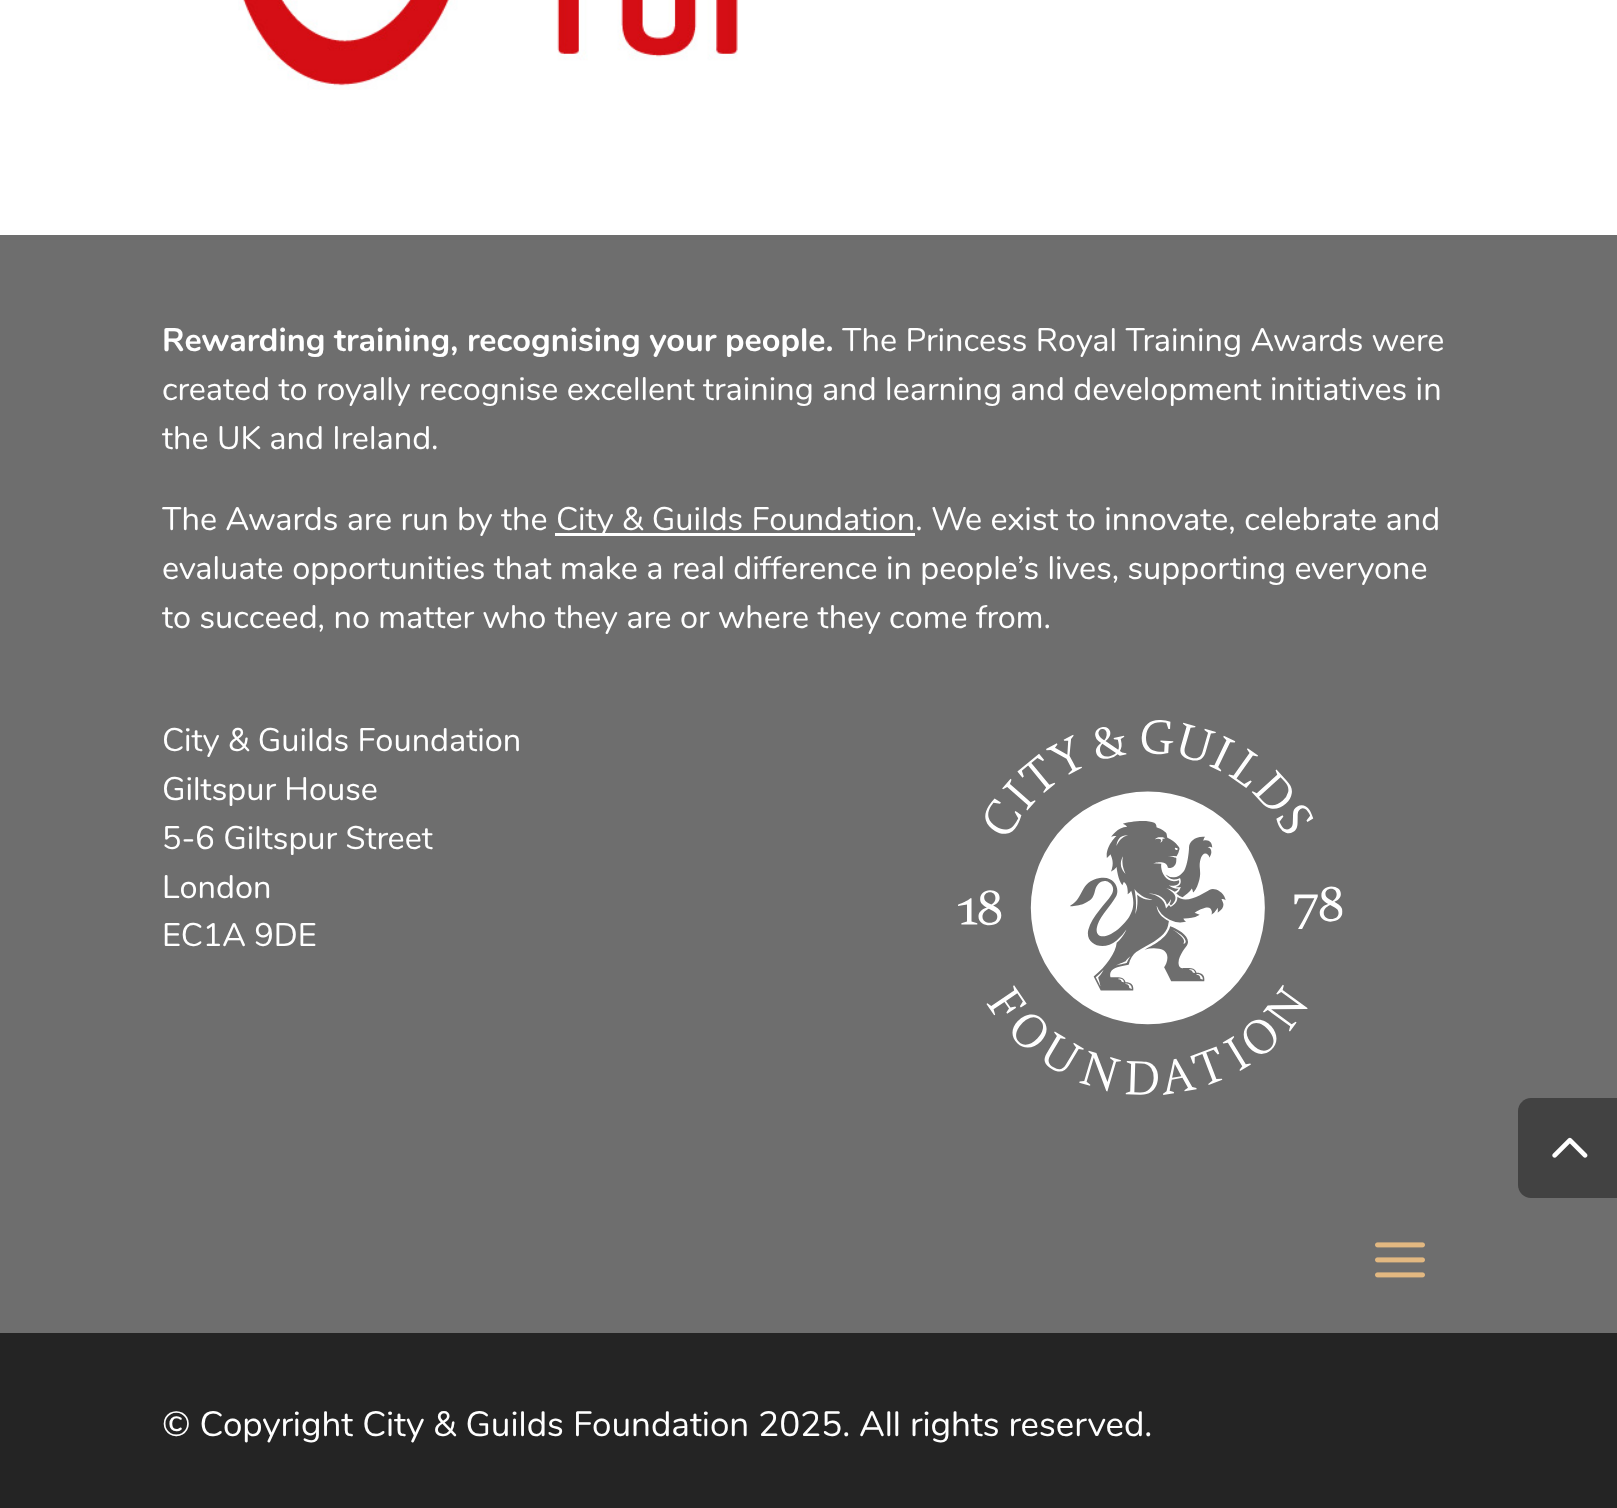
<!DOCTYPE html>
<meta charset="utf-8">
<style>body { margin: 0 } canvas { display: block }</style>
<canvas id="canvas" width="1617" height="1508"></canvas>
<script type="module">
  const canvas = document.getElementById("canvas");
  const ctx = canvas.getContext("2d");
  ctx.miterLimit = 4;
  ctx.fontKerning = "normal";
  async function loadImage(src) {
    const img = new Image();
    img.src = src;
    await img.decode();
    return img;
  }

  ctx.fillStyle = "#ffffff";
  ctx.fillRect(0, 0, 1617, 1508);
  ctx.drawImage(await loadImage("img1.png"), 238, 0, 500, 90);
  ctx.fillStyle = "#6e6e6e";
  ctx.fillRect(0, 235, 1617, 1098);
  ctx.font = "bold 32.5px Nunito";
  ctx.fillStyle = "#ffffff";
  ctx.fillText("Rewarding training, recognising your people.", 162, 351);
  ctx.font = "32.5px Nunito";
  ctx.fillText("The Princess Royal Training Awards were", 842, 351);
  ctx.fillText("created to royally recognise excellent training and learning and development initiatives in", 162, 400);
  ctx.fillText("the UK and Ireland.", 162, 449);
  ctx.fillText("The Awards are run by the", 162, 530);
  ctx.fillRect(555, 533, 360, 3);
  ctx.fillText("City & Guilds Foundation. We exist to innovate, celebrate and", 556, 530);
  ctx.fillText("evaluate opportunities that make a real difference in people’s lives, supporting everyone", 162, 579);
  ctx.fillText("to succeed, no matter who they are or where they come from.", 162, 628);
  ctx.fillText("City & Guilds Foundation", 162, 751);
  ctx.fillText("Giltspur House", 162, 800);
  ctx.fillText("5-6 Giltspur Street", 162, 849);
  ctx.fillText("London", 162, 898);
  ctx.fillText("EC1A 9DE", 162, 946);
  ctx.drawImage(await loadImage("img2.png"), 958, 720, 385, 375);
  ctx.drawImage(await loadImage("img3.png"), 1375, 1242, 50, 36);
  ctx.fillStyle = "#242424";
  ctx.fillRect(0, 1333, 1617, 175);
  ctx.font = "35px Nunito";
  ctx.fillStyle = "#ffffff";
  ctx.fillText("© Copyright City & Guilds Foundation 2025. All rights reserved.", 162, 1436);
  ctx.fillStyle = "#424242";
  ctx.beginPath();
  ctx.moveTo(1531, 1098);
  ctx.lineTo(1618, 1098);
  ctx.lineTo(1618, 1198);
  ctx.lineTo(1531, 1198);
  ctx.bezierCurveTo(1524, 1198, 1518, 1192, 1518, 1185);
  ctx.lineTo(1518, 1111);
  ctx.bezierCurveTo(1518, 1104, 1524, 1098, 1531, 1098);
  ctx.closePath();
  ctx.fill();
  ctx.drawImage(await loadImage("img4.png"), 1552, 1137, 36, 21);
</script>
